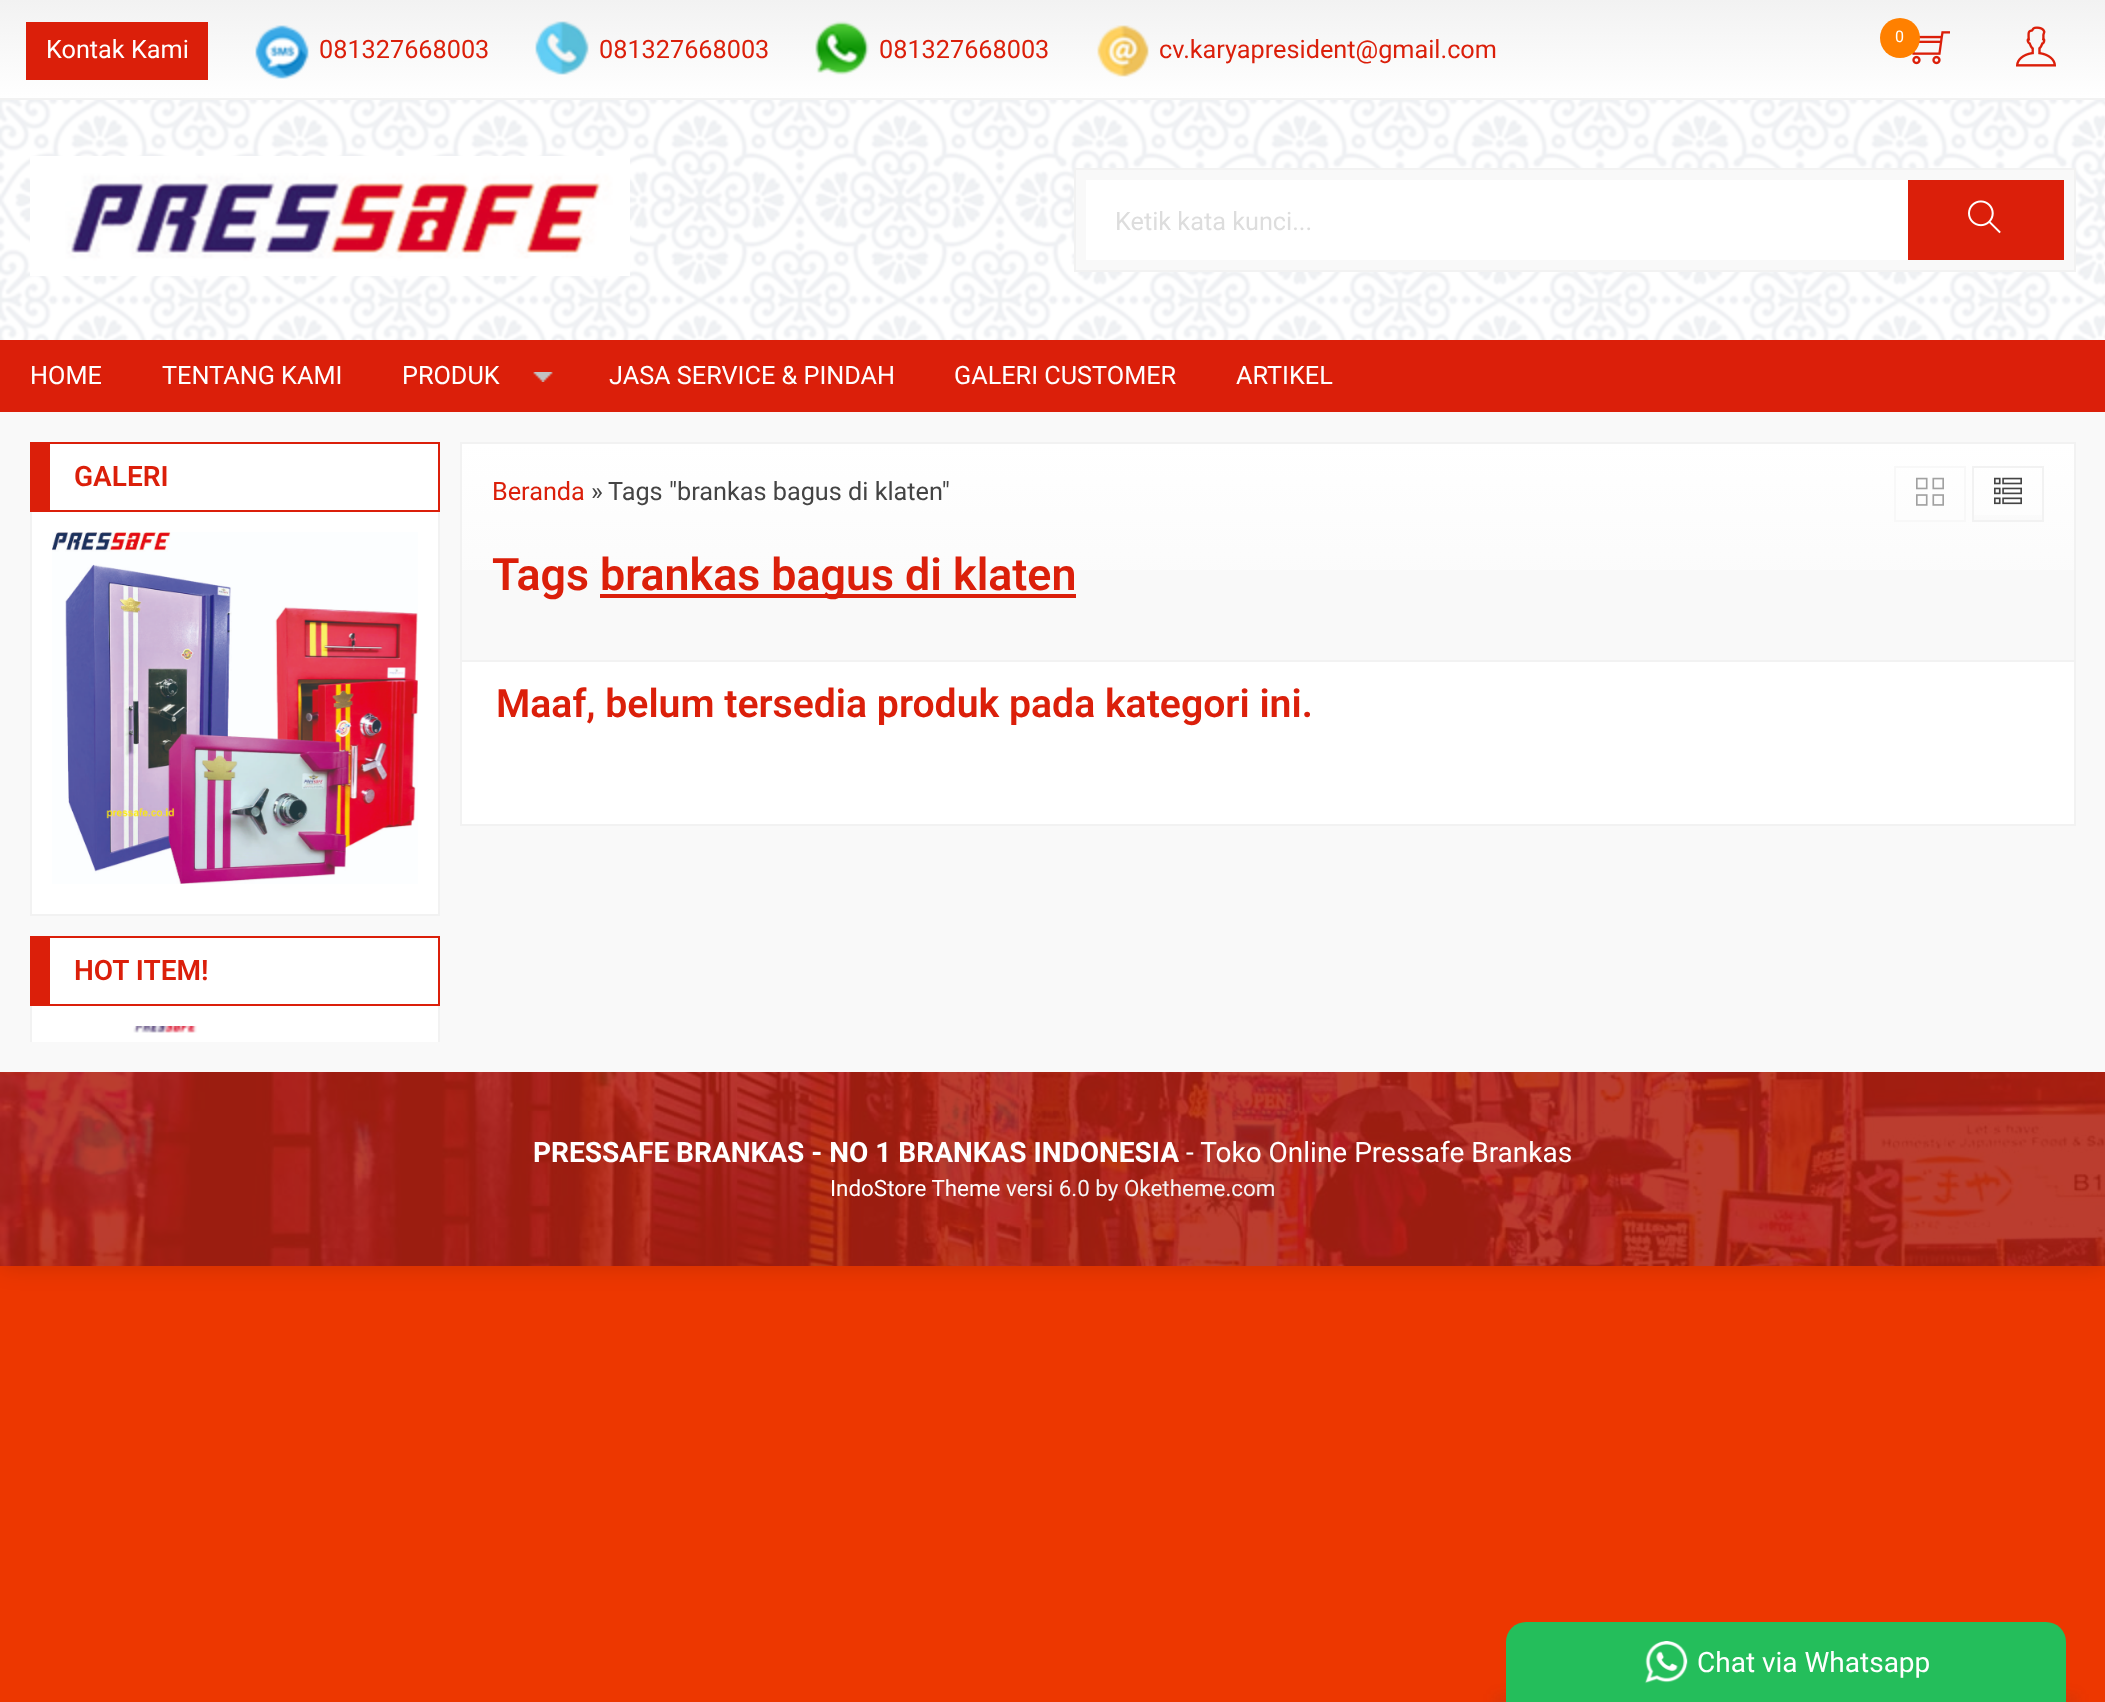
<!DOCTYPE html>
<meta charset="utf-8">
<style>body { margin: 0 } canvas { display: block }</style>
<canvas id="canvas" width="2105" height="1702"></canvas>
<script type="module">
  const canvas = document.getElementById("canvas");
  const ctx = canvas.getContext("2d");
  ctx.miterLimit = 4;
  ctx.fontKerning = "normal";
  async function loadImage(src) {
    const img = new Image();
    img.src = src;
    await img.decode();
    return img;
  }
  let gradient;

  ctx.fillStyle = "#ed3700";
  ctx.fillRect(0, 0, 2105, 1702);
  ctx.fillStyle = "rgba(0, 0, 0, 0.15)";
  ctx.filter = "blur(12px)";
  ctx.beginPath();
  ctx.rect(0, 0, 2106, 1266);
  ctx.fill();
  ctx.filter = "none";
  gradient = ctx.createLinearGradient(1053, 0, 1053, 98);
  gradient.addColorStop(0, "#f2f2f2");
  gradient.addColorStop(1, "#ffffff");
  ctx.fillStyle = gradient;
  ctx.fillRect(0, 0, 2105, 98);
  gradient = ctx.createLinearGradient(1053, 98, 1053, 196);
  gradient.addColorStop(0, "#f2f2f2");
  gradient.addColorStop(1, "#ffffff");
  ctx.fillStyle = gradient;
  ctx.fillRect(0, 98, 2105, 2);
  ctx.drawImage(await loadImage("img1.png"), 1912, 31, 38, 34);
  ctx.fillStyle = "#ff8000";
  ctx.beginPath();
  ctx.arc(1900, 38, 20, 0, Math.PI * 2);
  ctx.fill();
  ctx.font = "16px Roboto";
  ctx.fillStyle = "#ffffff";
  ctx.fillText("0", 1895, 42);
  ctx.drawImage(await loadImage("img2.png"), 2016, 26, 40, 41);
  ctx.fillStyle = "#db1f0a";
  ctx.fillRect(26, 22, 182, 58);
  ctx.font = "25.25px Roboto";
  ctx.fillStyle = "#ffffff";
  ctx.fillText("Kontak Kami", 46, 58);
  ctx.drawImage(await loadImage("img3.png"), 255, 25, 54, 54);
  ctx.fillStyle = "#db1f0a";
  ctx.fillText("081327668003", 319, 58);
  ctx.drawImage(await loadImage("img4.png"), 535, 21, 54, 54);
  ctx.fillText("081327668003", 599, 58);
  ctx.drawImage(await loadImage("img5.png"), 815, 21, 54, 54);
  ctx.fillText("081327668003", 879, 58);
  ctx.drawImage(await loadImage("img6.png"), 1097, 25, 52, 52);
  ctx.fillText("cv.karyapresident@gmail.com", 1159, 58);
  ctx.drawImage(await loadImage("img7.png"), 0, 100, 2105, 240);
  ctx.drawImage(await loadImage("img8.png"), 30, 156, 600, 120);
  ctx.fillStyle = "#f9f9f9";
  ctx.beginPath();
  ctx.rect(1075, 169, 1000, 102);
  ctx.fill();
  ctx.strokeStyle = "#f2f2f2";
  ctx.lineWidth = 2;
  ctx.stroke();
  ctx.fillStyle = "#ffffff";
  ctx.fillRect(1086, 180, 822, 80);
  ctx.fillStyle = "#dddddd";
  ctx.fillText("Ketik kata kunci...", 1115, 230);
  ctx.fillStyle = "#db1f0a";
  ctx.fillRect(1908, 180, 156, 80);
  ctx.drawImage(await loadImage("img9.png"), 1968, 200, 33, 34);
  ctx.fillRect(0, 340, 2105, 72);
  ctx.fillStyle = "#ffffff";
  ctx.fillText("HOME", 30, 384);
  ctx.fillText("TENTANG KAMI", 162, 384);
  ctx.drawImage(await loadImage("img10.png"), 533, 372, 20, 10);
  ctx.fillText("PRODUK", 402, 384);
  ctx.fillText("JASA SERVICE & PINDAH", 609, 384);
  ctx.fillText("GALERI CUSTOMER", 954, 384);
  ctx.fillText("ARTIKEL", 1236, 384);
  ctx.fillStyle = "#f9f9f9";
  ctx.fillRect(0, 412, 2105, 660);
  ctx.fillStyle = "#ffffff";
  ctx.beginPath();
  ctx.rect(31, 443, 408, 472);
  ctx.fill();
  ctx.stroke();
  ctx.fillStyle = "#db1f0a";
  ctx.fillRect(50, 442, 390, 2);
  ctx.fillRect(438, 442, 2, 70);
  ctx.fillRect(50, 510, 390, 2);
  ctx.fillRect(30, 442, 20, 70);
  ctx.font = "600 28px Roboto";
  ctx.fillText("GALERI", 74, 486);
  ctx.drawImage(await loadImage("img11.png"), 52, 532, 366, 352);
  ctx.fillStyle = "#ffffff";
  ctx.fillRect(32, 938, 406, 104);
  ctx.save();
  ctx.beginPath();
  ctx.rect(30, 442, 430, 600);
  ctx.clip();
  ctx.strokeRect(31, 937, 408, 290);
  ctx.restore();
  ctx.fillStyle = "#db1f0a";
  ctx.fillRect(50, 936, 390, 2);
  ctx.fillRect(438, 936, 2, 70);
  ctx.fillRect(50, 1004, 390, 2);
  ctx.fillRect(30, 936, 20, 70);
  ctx.fillText("HOT ITEM!", 74, 980);
  ctx.drawImage(await loadImage("img12.png"), 133, 1026, 64, 7);
  ctx.fillStyle = "#ffffff";
  ctx.fillRect(462, 662, 1612, 162);
  ctx.strokeRect(461, 443, 1614, 382);
  gradient = ctx.createLinearGradient(1268, 444, 1268, 660);
  gradient.addColorStop(0, "#ffffff");
  gradient.addColorStop(1, "#f9f9f9");
  ctx.fillStyle = gradient;
  ctx.fillRect(462, 444, 1612, 126);
  ctx.fillStyle = "#f2f2f2";
  ctx.fillRect(462, 660, 1612, 2);
  ctx.font = "25.25px Roboto";
  ctx.fillStyle = "#db1f0a";
  ctx.fillText("Beranda", 492, 500);
  ctx.fillStyle = "#444444";
  ctx.fillText("»", 591, 500);
  ctx.fillText("Tags \"brankas bagus di klaten\"", 608, 500);
  ctx.strokeStyle = "#f8f8f8";
  ctx.strokeRect(1895, 467, 70, 54);
  gradient = ctx.createLinearGradient(2008, 520, 2008, 468);
  gradient.addColorStop(0, "#fafafa");
  gradient.addColorStop(1, "#ffffff");
  ctx.fillStyle = gradient;
  ctx.fillRect(1974, 515, 68, 5);
  ctx.strokeStyle = "#f2f2f2";
  ctx.strokeRect(1973, 467, 70, 54);
  ctx.drawImage(await loadImage("img13.png"), 1916, 477, 28, 29);
  ctx.drawImage(await loadImage("img14.png"), 1994, 477, 28, 28);
  ctx.font = "600 44.75px Roboto";
  ctx.fillStyle = "#db1f0a";
  ctx.fillText("Tags", 492, 590);
  ctx.fillRect(600, 594, 476, 4);
  ctx.fillText("brankas bagus di klaten", 600, 590);
  ctx.font = "600 39.2px Roboto";
  ctx.fillText("Maaf, belum tersedia produk pada kategori ini.", 496, 717);
  ctx.fillStyle = "#af1908";
  ctx.fillRect(0, 1072, 2105, 194);
  ctx.drawImage(await loadImage("img15.png"), 0, 1072, 2105, 194);
  ctx.font = "bold 28px Roboto";
  ctx.fillStyle = "#ffffff";
  ctx.fillText("PRESSAFE BRANKAS - NO 1 BRANKAS INDONESIA", 533, 1162);
  ctx.font = "28px Roboto";
  ctx.fillText("- Toko Online Pressafe Brankas", 1186, 1162);
  ctx.font = "22.4px Roboto";
  ctx.fillText("IndoStore Theme", 830, 1196);
  ctx.fillStyle = "#f5f5f5";
  ctx.fillText("versi 6.0 by Oketheme.com", 1006, 1196);
  ctx.fillStyle = "rgba(51, 51, 51, 0.09)";
  ctx.filter = "blur(6px)";
  ctx.beginPath();
  ctx.rect(1494, 1694, 584, 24);
  ctx.fill();
  ctx.filter = "none";
  ctx.fillStyle = "#24be5b";
  ctx.beginPath();
  ctx.roundRect(1506, 1622, 560, 80, [20, 20, 0, 0]);
  ctx.fill();
  ctx.drawImage(await loadImage("img16.png"), 1644, 1641, 44, 43);
  ctx.font = "28px Roboto";
  ctx.fillStyle = "#ffffff";
  ctx.fillText("Chat via Whatsapp", 1697, 1672);
</script>
